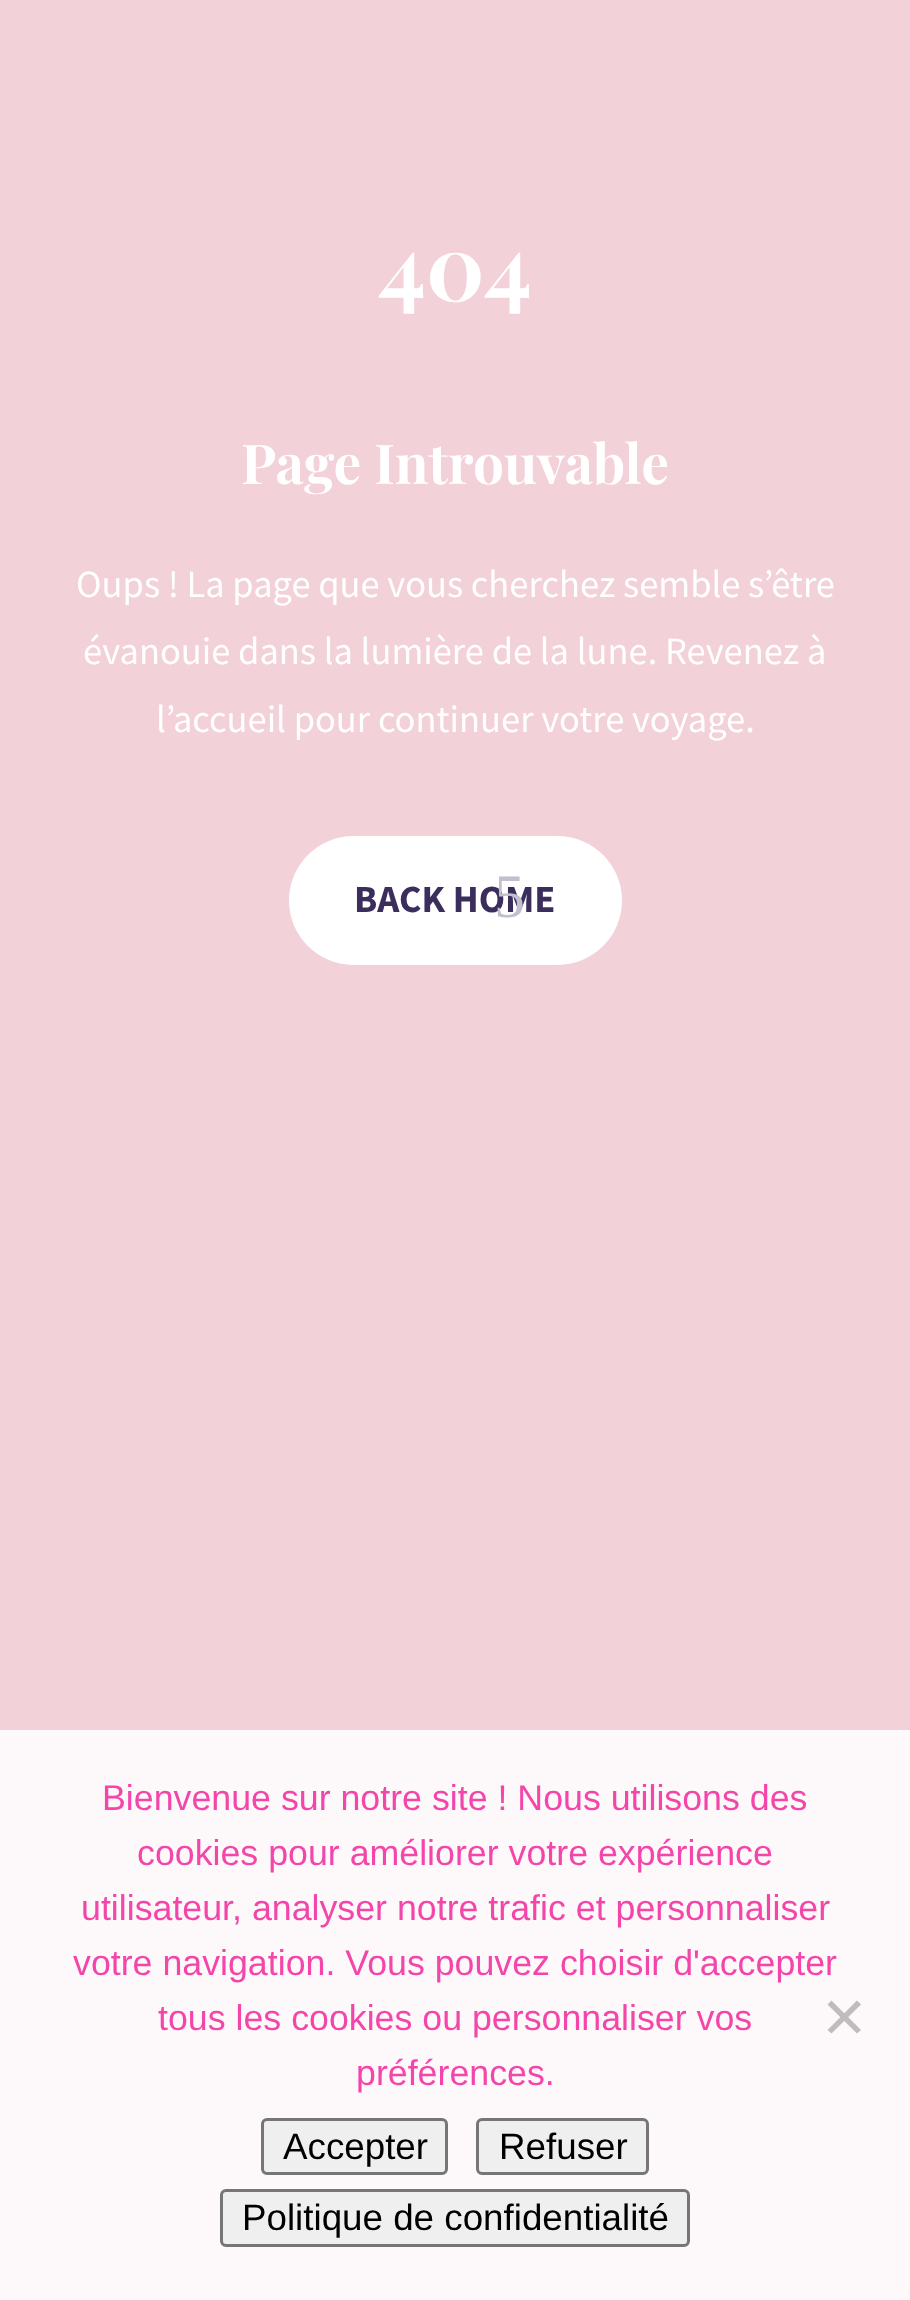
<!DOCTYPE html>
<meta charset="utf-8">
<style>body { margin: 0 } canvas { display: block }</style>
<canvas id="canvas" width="910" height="2300"></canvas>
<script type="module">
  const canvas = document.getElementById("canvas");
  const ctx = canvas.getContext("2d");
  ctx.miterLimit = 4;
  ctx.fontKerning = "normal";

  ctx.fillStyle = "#f2d1d9";
  ctx.fillRect(0, 0, 910, 2300);
  ctx.font = "bold 91px Playfair Display";
  ctx.fillStyle = "#ffffff";
  ctx.fillText("404", 378, 301);
  ctx.font = "bold 55px Playfair Display";
  ctx.fillText("Page Introuvable", 241, 484);
  ctx.font = "38.5px Source Sans Pro";
  ctx.fillText("Oups ! La page que vous cherchez semble s’être", 76, 597);
  ctx.fillText("évanouie dans la lumière de la lune. Revenez à", 83, 664);
  ctx.fillText("l’accueil pour continuer votre voyage.", 156, 732);
  ctx.beginPath();
  ctx.roundRect(289, 836, 333, 129, 64.5);
  ctx.fill();
  ctx.font = "bold 38.5px Source Sans Pro";
  ctx.fillStyle = "#3b2e5d";
  ctx.fillText("BACK HOME", 354, 912);
  ctx.font = "62px Liberation Serif";
  ctx.fillStyle = "#c3bfcd";
  ctx.fillText("5", 494, 917);
  ctx.fillStyle = "#fdf8f9";
  ctx.fillRect(0, 1730, 910, 570);
  ctx.font = "35.75px Liberation Sans";
  ctx.fillStyle = "#f446aa";
  ctx.fillText("Bienvenue sur notre site ! Nous utilisons des", 102, 1810);
  ctx.fillText("cookies pour améliorer votre expérience", 137, 1865);
  ctx.fillText("utilisateur, analyser notre trafic et personnaliser", 81, 1920);
  ctx.fillText("votre navigation. Vous pouvez choisir d'accepter", 73, 1975);
  ctx.fillText("tous les cookies ou personnaliser vos", 158, 2030);
  ctx.fillText("préférences.", 356, 2085);
  ctx.fillStyle = "#bfbcbd";
  ctx.beginPath();
  ctx.moveTo(857, 2000.5);
  ctx.lineTo(861, 2004.5);
  ctx.lineTo(831.5, 2033.5);
  ctx.lineTo(827.5, 2030);
  ctx.closePath();
  ctx.fill();
  ctx.beginPath();
  ctx.moveTo(827.5, 2004.5);
  ctx.lineTo(831.5, 2000.5);
  ctx.lineTo(861, 2030);
  ctx.lineTo(857, 2033.5);
  ctx.closePath();
  ctx.fill();
  ctx.fillStyle = "#efefef";
  ctx.beginPath();
  ctx.roundRect(262.5, 2119.5, 184, 54, 4.5);
  ctx.fill();
  ctx.strokeStyle = "#767676";
  ctx.lineWidth = 3;
  ctx.stroke();
  ctx.font = "36.75px Liberation Sans";
  ctx.fillStyle = "#000000";
  ctx.fillText("Accepter", 283, 2159);
  ctx.fillStyle = "#efefef";
  ctx.beginPath();
  ctx.roundRect(477.5, 2119.5, 170, 54, 4.5);
  ctx.fill();
  ctx.stroke();
  ctx.fillStyle = "#000000";
  ctx.fillText("Refuser", 499, 2159);
  ctx.fillStyle = "#efefef";
  ctx.beginPath();
  ctx.roundRect(221.5, 2190.5, 467, 55, 4.5);
  ctx.fill();
  ctx.stroke();
  ctx.fillStyle = "#000000";
  ctx.fillText("Politique de confidentialité", 242, 2230);
</script>
